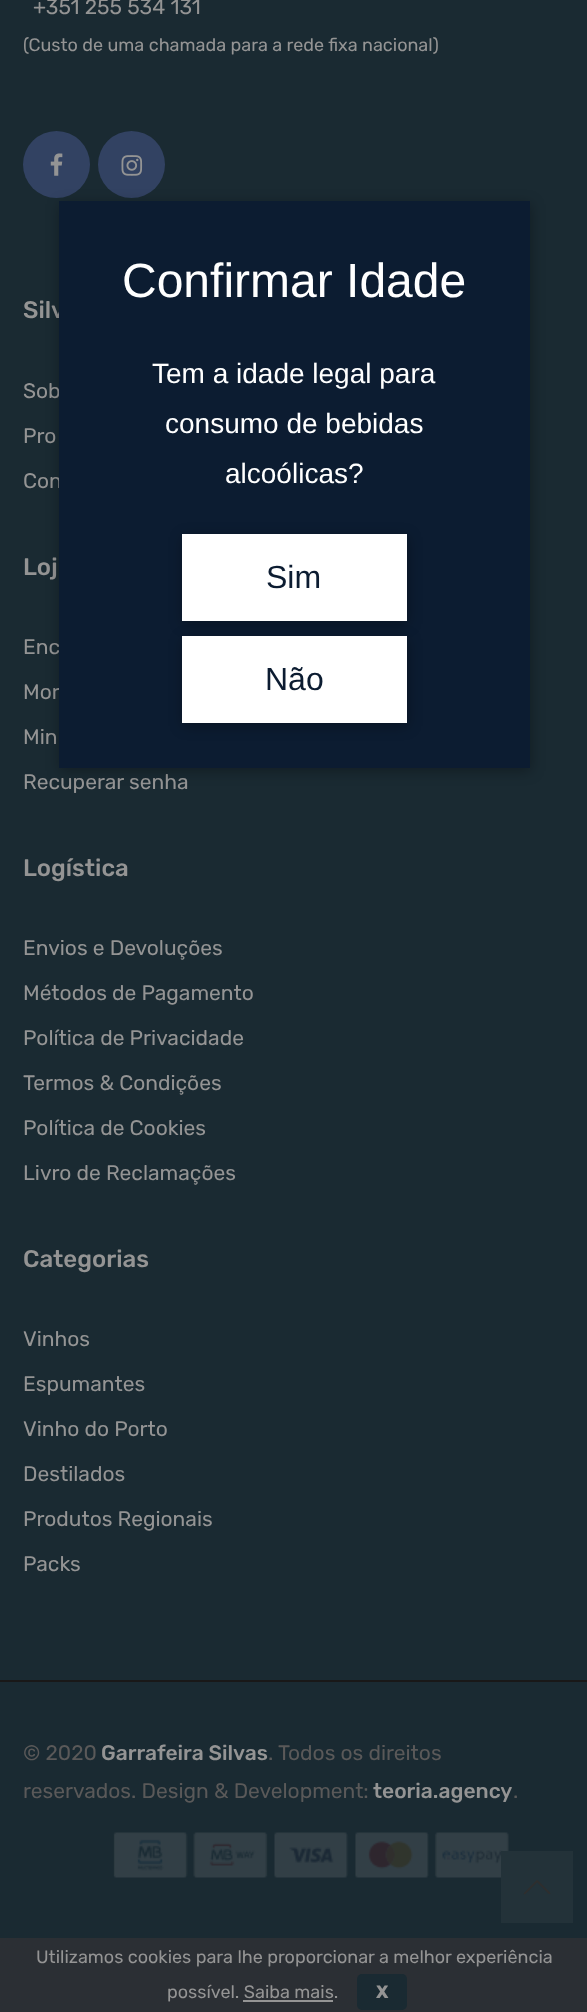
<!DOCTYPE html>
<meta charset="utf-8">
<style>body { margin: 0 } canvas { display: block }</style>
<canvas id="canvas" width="587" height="2012"></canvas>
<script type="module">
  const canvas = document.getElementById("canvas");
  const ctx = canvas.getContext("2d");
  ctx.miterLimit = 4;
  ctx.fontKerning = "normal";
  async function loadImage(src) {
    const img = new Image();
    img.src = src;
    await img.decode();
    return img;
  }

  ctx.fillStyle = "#1a2a32";
  ctx.fillRect(0, 0, 587, 2012);
  ctx.fillStyle = "#191818";
  ctx.fillRect(0, 1680, 587, 2);
  ctx.font = "21px Rubik";
  ctx.fillStyle = "#949494";
  ctx.fillText("+351 255 534 131", 33, 14);
  ctx.font = "18px Rubik";
  ctx.fillText("(Custo de uma chamada para a rede fixa nacional)", 23, 51);
  ctx.fillStyle = "#324262";
  ctx.beginPath();
  ctx.arc(56.5, 164.5, 33.5, 0, Math.PI * 2);
  ctx.fill();
  ctx.drawImage(await loadImage("img1.png"), 50, 153, 13, 23);
  ctx.beginPath();
  ctx.arc(131.5, 164.5, 33.5, 0, Math.PI * 2);
  ctx.fill();
  ctx.drawImage(await loadImage("img2.png"), 121, 155, 22, 21);
  ctx.font = "500 24px Rubik";
  ctx.fillStyle = "#949494";
  ctx.fillText("Silv", 23, 318);
  ctx.font = "21px Rubik";
  ctx.fillText("Sob", 23, 398);
  ctx.fillText("Pro", 23, 443);
  ctx.fillText("Con", 23, 488);
  ctx.font = "500 24px Rubik";
  ctx.fillText("Loj", 23, 575);
  ctx.font = "21px Rubik";
  ctx.fillText("Enc", 23, 654);
  ctx.fillText("Mor", 23, 699);
  ctx.fillText("Min", 23, 744);
  ctx.fillText("Recuperar senha", 23, 789);
  ctx.font = "500 24px Rubik";
  ctx.fillText("Logística", 23, 876);
  ctx.font = "21px Rubik";
  ctx.fillText("Envios e Devoluções", 23, 955);
  ctx.fillText("Métodos de Pagamento", 23, 1000);
  ctx.fillText("Política de Privacidade", 23, 1045);
  ctx.fillText("Termos & Condições", 23, 1090);
  ctx.fillText("Política de Cookies", 23, 1135);
  ctx.fillText("Livro de Reclamações", 23, 1180);
  ctx.font = "500 24px Rubik";
  ctx.fillText("Categorias", 23, 1267);
  ctx.font = "21px Rubik";
  ctx.fillText("Vinhos", 23, 1346);
  ctx.fillText("Espumantes", 23, 1391);
  ctx.fillText("Vinho do Porto", 23, 1436);
  ctx.fillText("Destilados", 23, 1481);
  ctx.fillText("Produtos Regionais", 23, 1526);
  ctx.fillText("Packs", 23, 1571);
  ctx.fillStyle = "#5a5959";
  ctx.fillText("© 2020", 23, 1760);
  ctx.font = "500 21px Rubik";
  ctx.fillStyle = "#949494";
  ctx.fillText("Garrafeira Silvas", 101, 1760);
  ctx.font = "21px Rubik";
  ctx.fillStyle = "#5a5959";
  ctx.fillText(". Todos os direitos", 268, 1760);
  ctx.fillText("reservados. Design & Development:", 23, 1798);
  ctx.font = "500 21px Rubik";
  ctx.fillStyle = "#949494";
  ctx.fillText("teoria.agency", 373, 1798);
  ctx.font = "21px Rubik";
  ctx.fillStyle = "#5a5959";
  ctx.fillText(".", 513, 1798);
  ctx.drawImage(await loadImage("img3.png"), 113, 1832, 396, 46);
  ctx.fillStyle = "#233239";
  ctx.fillRect(501, 1851, 72, 72);
  ctx.drawImage(await loadImage("img4.png"), 523, 1880, 28, 15);
  ctx.fillStyle = "rgba(0, 0, 0, 0.3)";
  ctx.filter = "blur(7px)";
  ctx.beginPath();
  ctx.rect(60, 204, 471, 567);
  ctx.fill();
  ctx.filter = "none";
  ctx.fillStyle = "#0c1c31";
  ctx.fillRect(59, 201, 471, 567);
  ctx.font = "48px Liberation Sans";
  ctx.fillStyle = "#ffffff";
  ctx.fillText("Confirmar Idade", 122, 297);
  ctx.font = "28px Liberation Sans";
  ctx.fillText("Tem a idade legal para", 152, 383);
  ctx.fillText("consumo de bebidas", 165, 433);
  ctx.fillText("alcoólicas?", 225, 483);
  ctx.fillStyle = "rgba(0, 0, 0, 0.3)";
  ctx.filter = "blur(7px)";
  ctx.beginPath();
  ctx.rect(183, 537, 225, 87);
  ctx.fill();
  ctx.filter = "none";
  ctx.fillStyle = "#ffffff";
  ctx.fillRect(182, 534, 225, 87);
  ctx.font = "32px Liberation Sans";
  ctx.fillStyle = "#0c1c31";
  ctx.fillText("Sim", 266, 588);
  ctx.fillStyle = "rgba(0, 0, 0, 0.3)";
  ctx.filter = "blur(7px)";
  ctx.beginPath();
  ctx.rect(183, 639, 225, 87);
  ctx.fill();
  ctx.filter = "none";
  ctx.fillStyle = "#ffffff";
  ctx.fillRect(182, 636, 225, 87);
  ctx.fillStyle = "#0c1c31";
  ctx.fillText("Não", 265, 690);
  ctx.fillStyle = "#2b2f34";
  ctx.fillRect(0, 1938, 587, 74);
  ctx.font = "18px Rubik";
  ctx.fillStyle = "#949494";
  ctx.fillText("Utilizamos cookies para lhe proporcionar a melhor experiência", 36, 1963);
  ctx.fillText("possível. Saiba mais.", 167, 1998);
  ctx.fillStyle = "#1a2a32";
  ctx.beginPath();
  ctx.roundRect(357, 1974, 50, 36, 5);
  ctx.fill();
  ctx.font = "bold 18px Rubik";
  ctx.fillStyle = "#949494";
  ctx.fillText("X", 376, 1998);
  ctx.fillRect(243, 2000, 90, 2);
</script>
